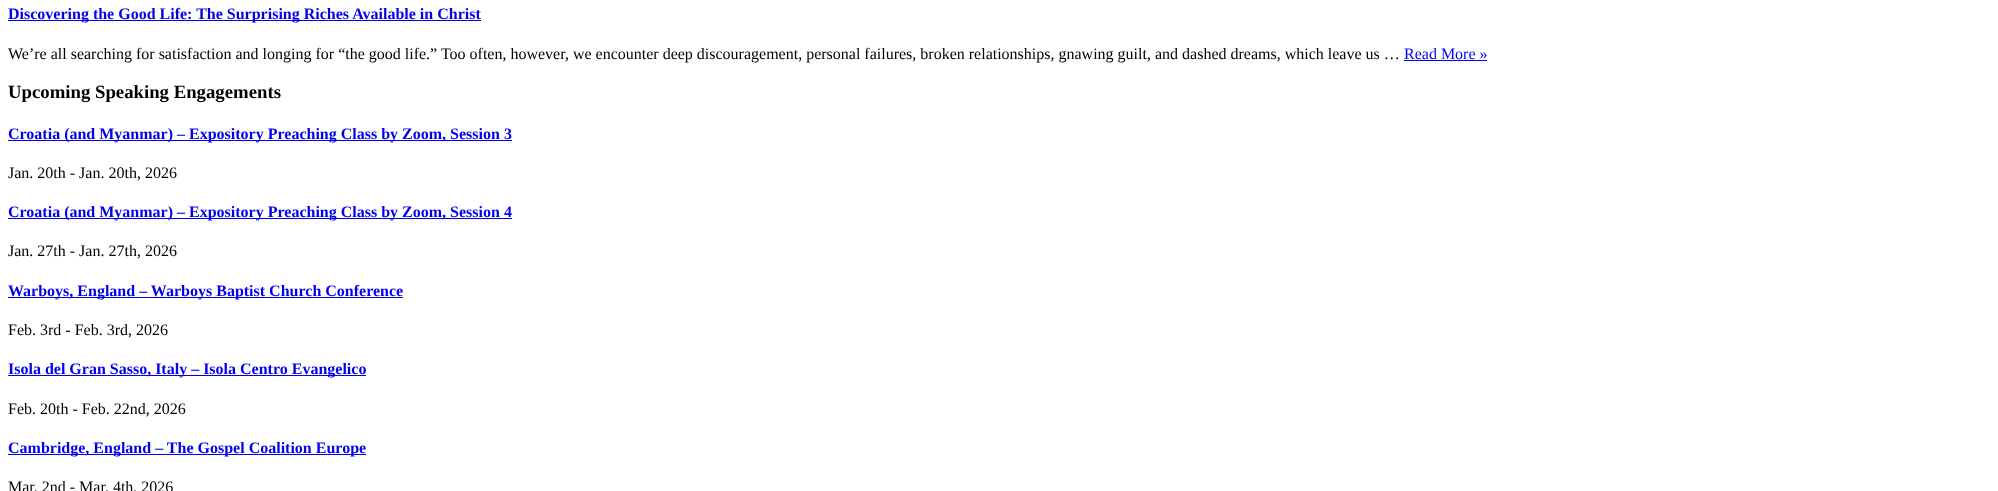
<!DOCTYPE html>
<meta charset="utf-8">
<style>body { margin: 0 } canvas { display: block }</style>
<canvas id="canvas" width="1998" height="491"></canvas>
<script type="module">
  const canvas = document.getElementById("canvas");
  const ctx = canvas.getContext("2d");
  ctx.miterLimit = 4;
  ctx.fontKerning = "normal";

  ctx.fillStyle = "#ffffff";
  ctx.fillRect(0, 0, 1998, 491);
  ctx.fillStyle = "#0000ee";
  ctx.fillRect(8, 20, 473, 1);
  ctx.font = "bold 16px Liberation Serif";
  ctx.fillText("Discovering the Good Life: The Surprising Riches Available in Christ", 8, 19);
  ctx.font = "16px Liberation Serif";
  ctx.fillStyle = "#000000";
  ctx.fillText("We’re all searching for satisfaction and longing for “the good life.” Too often, however, we encounter deep discouragement, personal failures, broken relationships, gnawing guilt, and dashed dreams, which leave us …", 8, 59);
  ctx.fillStyle = "#0000ee";
  ctx.fillText("Read More »", 1404, 59);
  ctx.fillRect(1404, 60, 83, 1);
  ctx.font = "bold 18.75px Liberation Serif";
  ctx.fillStyle = "#000000";
  ctx.fillText("Upcoming Speaking Engagements", 8, 98);
  ctx.fillStyle = "#0000ee";
  ctx.fillRect(8, 140, 504, 1);
  ctx.font = "bold 16px Liberation Serif";
  ctx.fillText("Croatia (and Myanmar) – Expository Preaching Class by Zoom, Session 3", 8, 139);
  ctx.font = "16px Liberation Serif";
  ctx.fillStyle = "#000000";
  ctx.fillText("Jan. 20th - Jan. 20th, 2026", 8, 178);
  ctx.fillStyle = "#0000ee";
  ctx.fillRect(8, 218, 504, 1);
  ctx.font = "bold 16px Liberation Serif";
  ctx.fillText("Croatia (and Myanmar) – Expository Preaching Class by Zoom, Session 4", 8, 217);
  ctx.font = "16px Liberation Serif";
  ctx.fillStyle = "#000000";
  ctx.fillText("Jan. 27th - Jan. 27th, 2026", 8, 256);
  ctx.fillStyle = "#0000ee";
  ctx.fillRect(8, 297, 395, 1);
  ctx.font = "bold 16px Liberation Serif";
  ctx.fillText("Warboys, England – Warboys Baptist Church Conference", 8, 296);
  ctx.font = "16px Liberation Serif";
  ctx.fillStyle = "#000000";
  ctx.fillText("Feb. 3rd - Feb. 3rd, 2026", 8, 335);
  ctx.fillStyle = "#0000ee";
  ctx.fillRect(8, 375, 358, 1);
  ctx.font = "bold 16px Liberation Serif";
  ctx.fillText("Isola del Gran Sasso, Italy – Isola Centro Evangelico", 8, 374);
  ctx.font = "16px Liberation Serif";
  ctx.fillStyle = "#000000";
  ctx.fillText("Feb. 20th - Feb. 22nd, 2026", 8, 414);
  ctx.fillStyle = "#0000ee";
  ctx.fillRect(8, 454, 358, 1);
  ctx.font = "bold 16px Liberation Serif";
  ctx.fillText("Cambridge, England – The Gospel Coalition Europe", 8, 453);
  ctx.font = "16px Liberation Serif";
  ctx.fillStyle = "#000000";
  ctx.fillText("Mar. 2nd - Mar. 4th, 2026", 8, 492);
</script>
